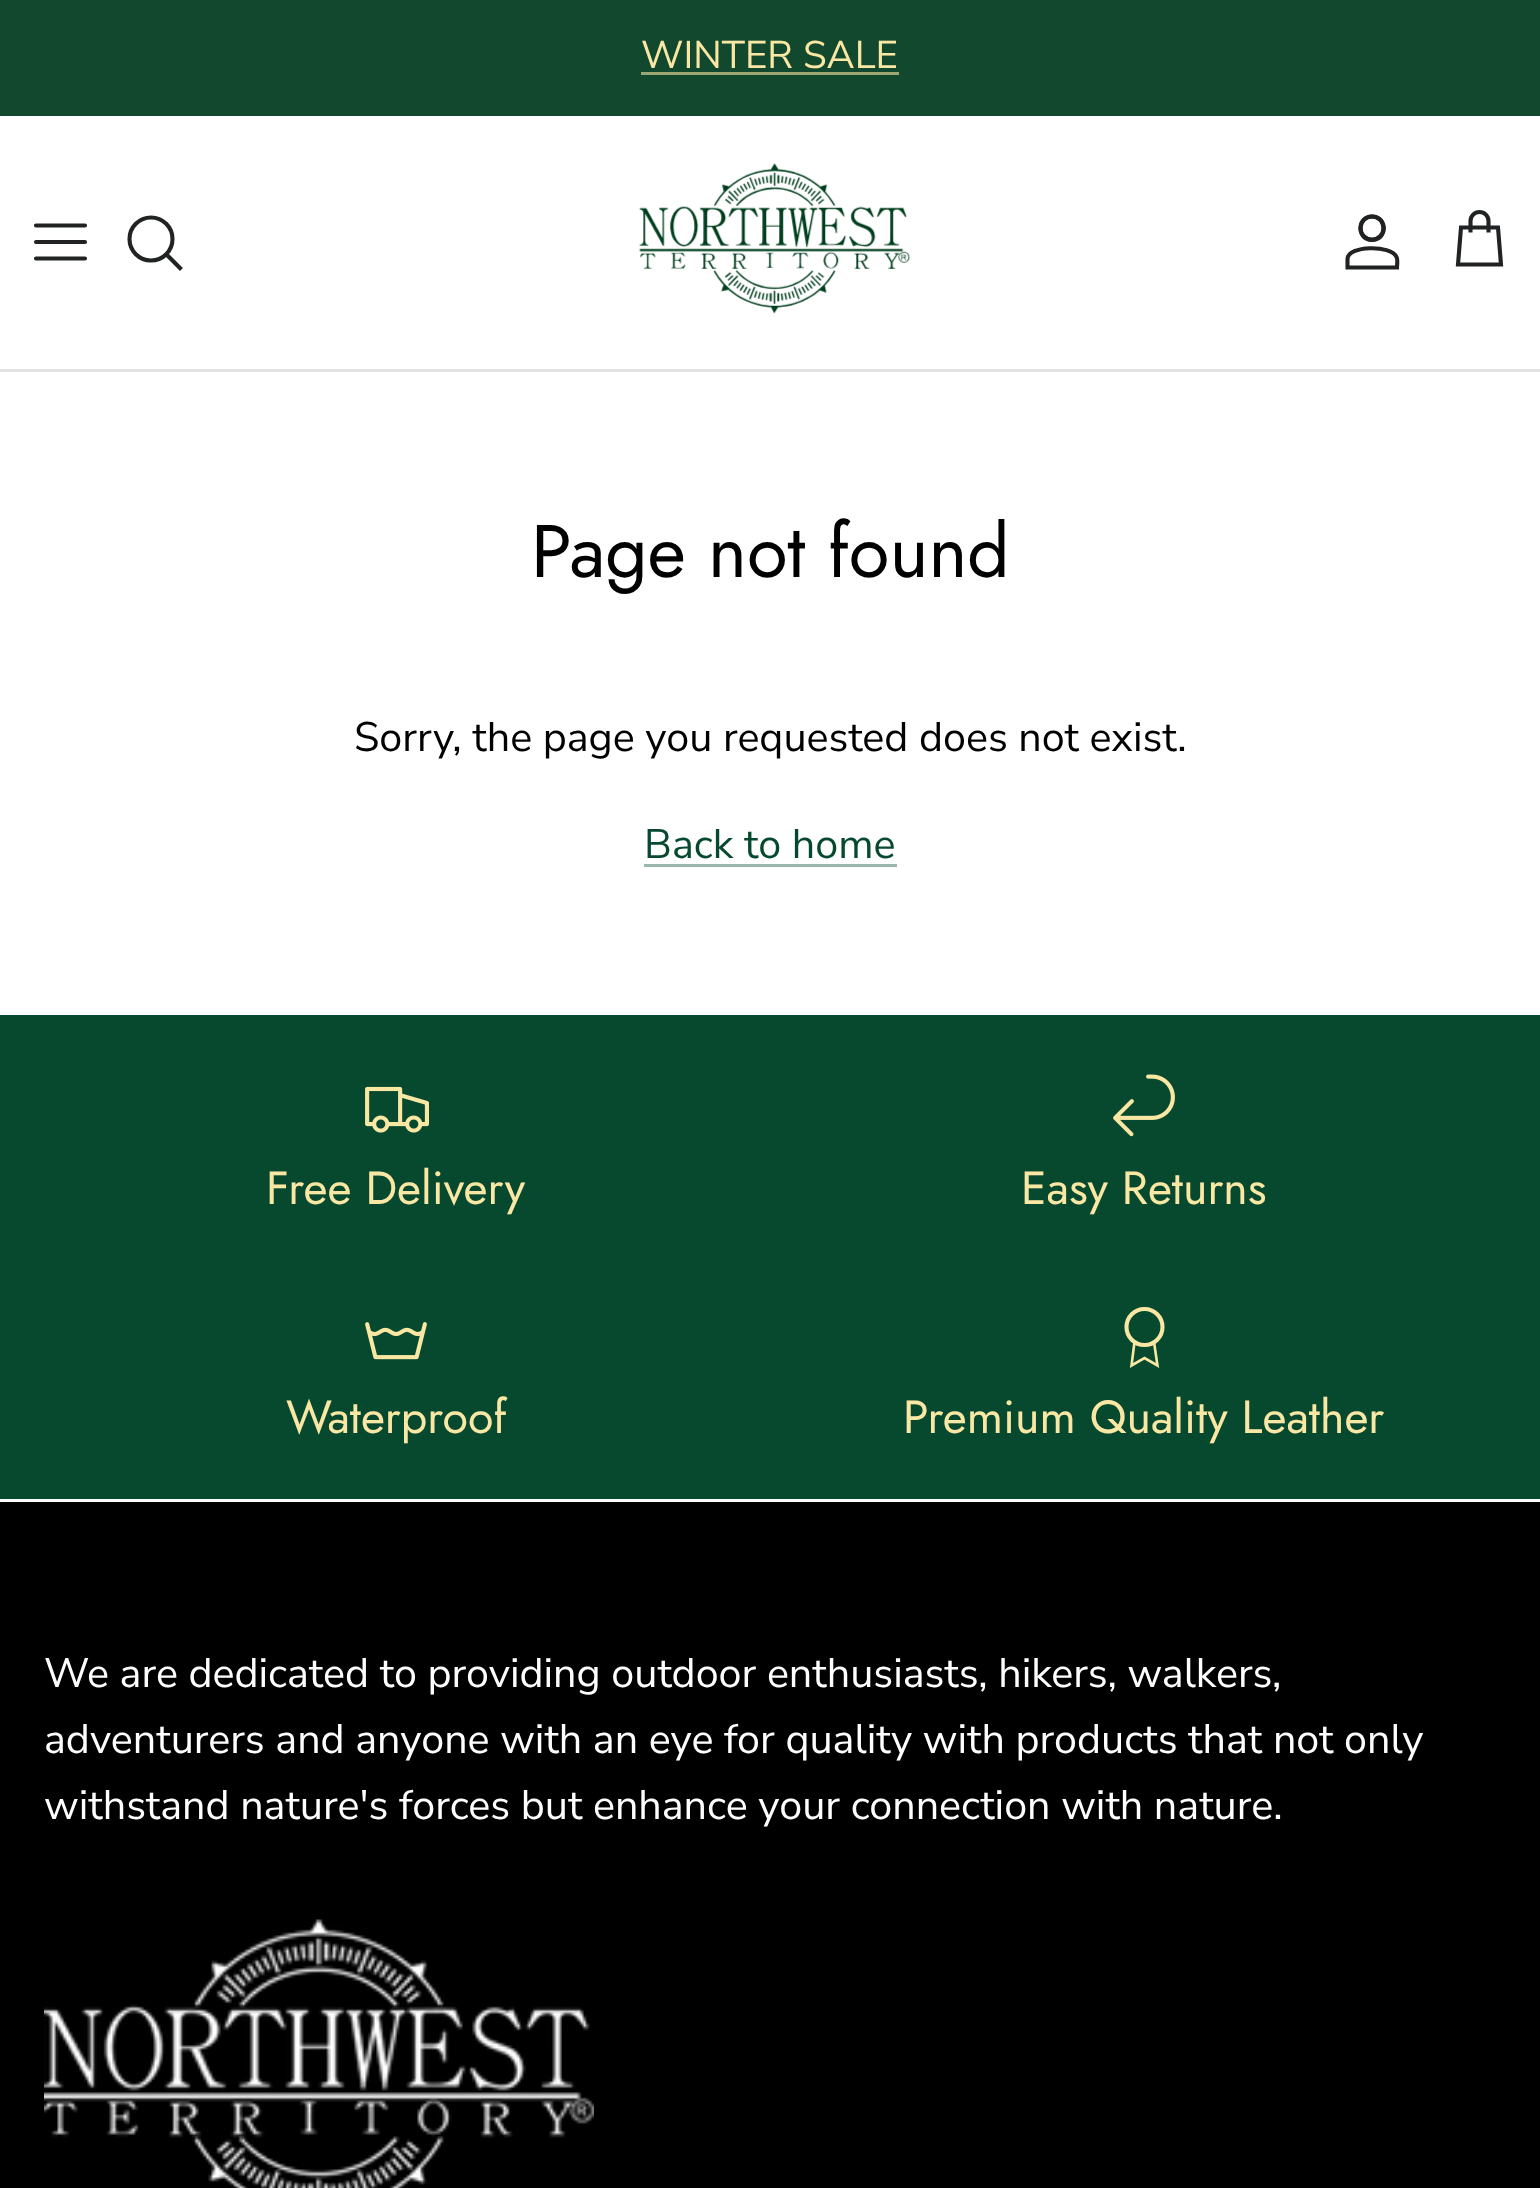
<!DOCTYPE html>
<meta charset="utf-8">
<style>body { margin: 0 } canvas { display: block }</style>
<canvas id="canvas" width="1540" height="2188"></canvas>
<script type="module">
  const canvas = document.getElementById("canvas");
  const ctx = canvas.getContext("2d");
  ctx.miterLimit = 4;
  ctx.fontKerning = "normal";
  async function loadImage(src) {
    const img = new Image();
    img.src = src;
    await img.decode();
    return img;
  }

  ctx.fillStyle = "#ffffff";
  ctx.fillRect(0, 0, 1540, 2188);
  ctx.fillStyle = "#11482e";
  ctx.fillRect(0, 0, 1540, 116);
  ctx.font = "38.5px Nunito Sans";
  ctx.fillStyle = "#f9e7a3";
  ctx.fillText("WINTER SALE", 641, 68);
  ctx.fillStyle = "#9ca774";
  ctx.fillRect(641, 72, 258, 3);
  ctx.fillStyle = "#e2e2e2";
  ctx.fillRect(0, 369, 1540, 3);
  ctx.beginPath();
  ctx.moveTo(36, 242);
  ctx.lineTo(85, 242);
  ctx.moveTo(36, 225.5);
  ctx.lineTo(85, 225.5);
  ctx.moveTo(36, 258.5);
  ctx.lineTo(85, 258.5);
  ctx.strokeStyle = "#202223";
  ctx.lineWidth = 4.1;
  ctx.lineCap = "round";
  ctx.lineJoin = "round";
  ctx.stroke();
  ctx.beginPath();
  ctx.arc(151, 239, 21.5, 0, Math.PI * 2);
  ctx.stroke();
  ctx.beginPath();
  ctx.moveTo(167.5, 255.5);
  ctx.lineTo(180, 268);
  ctx.lineCap = "square";
  ctx.lineJoin = "miter";
  ctx.stroke();
  ctx.drawImage(await loadImage("img1.png"), 639, 163, 272, 151);
  ctx.fillStyle = "#202223";
  ctx.beginPath();
  ctx.moveTo(1372, 214.5);
  ctx.bezierCurveTo(1390.5, 214.5, 1390.5, 242, 1372, 242);
  ctx.bezierCurveTo(1354, 242, 1354, 214.5, 1372, 214.5);
  ctx.closePath();
  ctx.moveTo(1372, 218.5);
  ctx.bezierCurveTo(1359.5, 218.5, 1359.5, 238, 1372, 238);
  ctx.bezierCurveTo(1385, 238, 1385, 218.5, 1372, 218.5);
  ctx.closePath();
  ctx.fill("evenodd");
  ctx.beginPath();
  ctx.arc(1372, 228, 11.5, 0, Math.PI * 2);
  ctx.stroke();
  ctx.beginPath();
  ctx.moveTo(1347.5, 259);
  ctx.bezierCurveTo(1347.5, 245.5, 1391, 244.5, 1396.5, 257);
  ctx.bezierCurveTo(1398, 259.5, 1397, 264.5, 1397, 267.5);
  ctx.lineTo(1347.5, 267.5);
  ctx.closePath();
  ctx.lineCap = "butt";
  ctx.stroke();
  ctx.beginPath();
  ctx.moveTo(1488.5, 232.5);
  ctx.lineTo(1488.5, 221);
  ctx.bezierCurveTo(1488.5, 216, 1484.5, 212, 1479.5, 212);
  ctx.bezierCurveTo(1474.5, 212, 1470.5, 216, 1470.5, 221);
  ctx.lineTo(1470.5, 232.5);
  ctx.moveTo(1461, 227.5);
  ctx.lineTo(1498, 227.5);
  ctx.lineTo(1501, 264.5);
  ctx.lineTo(1458, 264.5);
  ctx.closePath();
  ctx.stroke();
  ctx.font = "74.25px Jost";
  ctx.fillStyle = "#000000";
  ctx.fillText("Page not found", 531, 577);
  ctx.font = "41.25px Nunito Sans";
  ctx.fillText("Sorry, the page you requested does not exist.", 354, 751);
  ctx.fillStyle = "#06492f";
  ctx.fillText("Back to home", 644, 858);
  ctx.fillStyle = "#9bb6ac";
  ctx.fillRect(644, 864, 253, 3);
  ctx.fillStyle = "#06492f";
  ctx.fillRect(0, 1015, 1540, 484);
  ctx.drawImage(await loadImage("img2.png"), 365, 1086, 64, 47);
  ctx.font = "46.5px Jost";
  ctx.fillStyle = "#f9e7a3";
  ctx.fillText("Free Delivery", 266, 1204);
  ctx.drawImage(await loadImage("img3.png"), 1113, 1074, 62, 63);
  ctx.fillText("Easy Returns", 1021, 1204);
  ctx.drawImage(await loadImage("img4.png"), 365, 1322, 62, 38);
  ctx.fillText("Waterproof", 286, 1433);
  ctx.beginPath();
  ctx.arc(1144.5, 1327, 18, 0, Math.PI * 2);
  ctx.strokeStyle = "#f9e7a3";
  ctx.stroke();
  ctx.beginPath();
  ctx.moveTo(1134.5, 1342);
  ctx.lineTo(1131.5, 1365.5);
  ctx.lineTo(1144.5, 1358);
  ctx.lineTo(1157.5, 1365.5);
  ctx.lineTo(1154, 1342);
  ctx.lineWidth = 2.6;
  ctx.stroke();
  ctx.fillText("Premium Quality Leather", 903, 1433);
  ctx.fillStyle = "#000000";
  ctx.fillRect(0, 1502, 1540, 686);
  ctx.font = "41.25px Nunito Sans";
  ctx.fillStyle = "#ffffff";
  ctx.fillText("We are dedicated to providing outdoor enthusiasts, hikers, walkers,", 44, 1687);
  ctx.fillText("adventurers and anyone with an eye for quality with products that not only", 44, 1753);
  ctx.fillText("withstand nature's forces but enhance your connection with nature.", 44, 1819);
  ctx.drawImage(await loadImage("img5.png"), 44, 1919, 550, 269);
</script>
